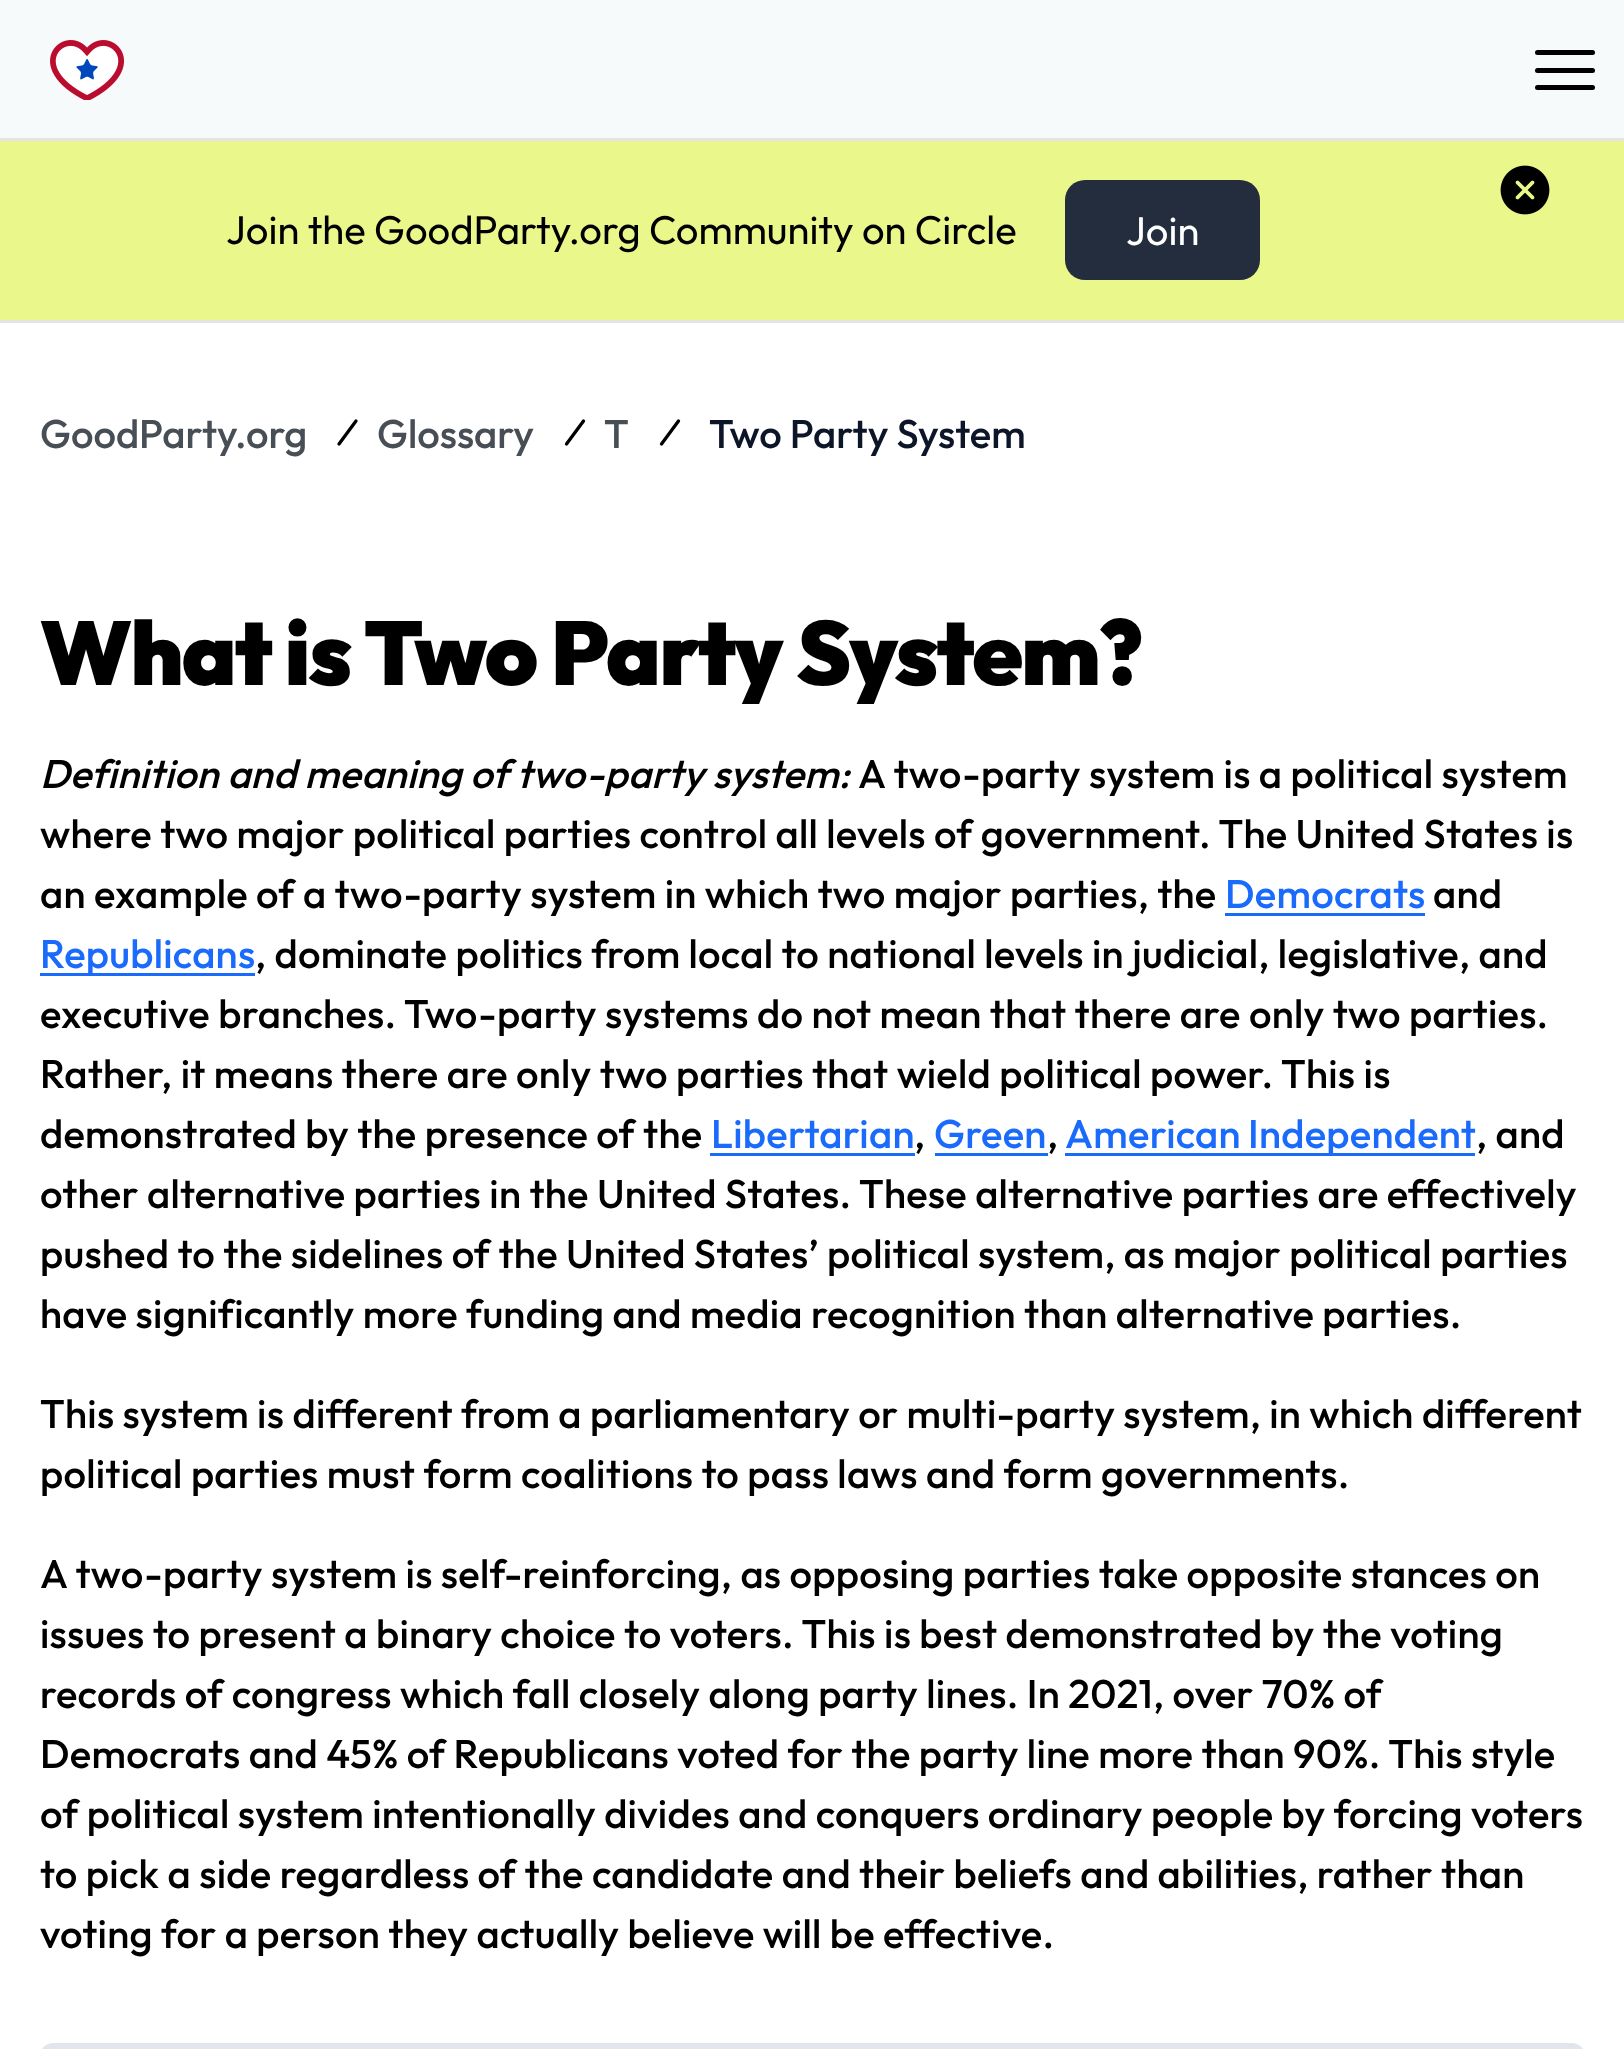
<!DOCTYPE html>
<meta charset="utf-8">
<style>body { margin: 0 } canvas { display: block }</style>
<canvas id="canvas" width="1624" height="2049"></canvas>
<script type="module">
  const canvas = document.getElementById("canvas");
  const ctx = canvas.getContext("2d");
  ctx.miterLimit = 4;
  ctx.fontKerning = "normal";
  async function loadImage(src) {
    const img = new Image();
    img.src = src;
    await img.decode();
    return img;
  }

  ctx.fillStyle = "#ffffff";
  ctx.fillRect(0, 0, 1624, 2049);
  ctx.fillStyle = "#f7fafb";
  ctx.fillRect(0, 0, 1624, 138);
  ctx.fillStyle = "#e4e4e7";
  ctx.fillRect(0, 138, 1624, 3);
  ctx.drawImage(await loadImage("img1.png"), 50, 40, 75, 60);
  ctx.fillStyle = "#000000";
  ctx.beginPath();
  ctx.roundRect(1535, 50, 60, 5, 2.5);
  ctx.fill();
  ctx.beginPath();
  ctx.roundRect(1535, 68, 60, 5, 2.5);
  ctx.fill();
  ctx.beginPath();
  ctx.roundRect(1535, 85, 60, 5, 2.5);
  ctx.fill();
  ctx.fillStyle = "#eaf78b";
  ctx.fillRect(0, 141, 1624, 179);
  ctx.fillStyle = "#e4e4e7";
  ctx.fillRect(0, 320, 1624, 3);
  ctx.drawImage(await loadImage("img2.png"), 1500, 165, 50, 50);
  ctx.font = "40px Outfit";
  ctx.fillStyle = "#000000";
  ctx.fillText("Join the GoodParty.org Community on Circle", 226, 244);
  ctx.fillStyle = "#242d3d";
  ctx.beginPath();
  ctx.roundRect(1065, 180, 195, 100, 20);
  ctx.fill();
  ctx.fillStyle = "#ffffff";
  ctx.fillText("Join", 1126, 245);
  ctx.font = "500 40px Outfit";
  ctx.fillStyle = "#484e55";
  ctx.fillText("GoodParty.org", 40, 448);
  ctx.beginPath();
  ctx.moveTo(356, 421);
  ctx.lineTo(339, 444);
  ctx.strokeStyle = "#000000";
  ctx.lineWidth = 3.3;
  ctx.lineCap = "round";
  ctx.lineJoin = "round";
  ctx.stroke();
  ctx.fillText("Glossary", 377, 448);
  ctx.beginPath();
  ctx.moveTo(583.5, 421);
  ctx.lineTo(566.5, 444);
  ctx.stroke();
  ctx.fillText("T", 604, 448);
  ctx.beginPath();
  ctx.moveTo(678.5, 421);
  ctx.lineTo(661.5, 444);
  ctx.stroke();
  ctx.fillStyle = "#0d1528";
  ctx.fillText("Two Party System", 709, 448);
  ctx.letterSpacing = "-1.75px";
  ctx.wordSpacing = "-1px";
  ctx.font = "900 90px Outfit";
  ctx.fillStyle = "#000000";
  ctx.fillText("What is", 40, 685);
  ctx.wordSpacing = "0px";
  ctx.fillText("Two Party System?", 364, 685);
  ctx.letterSpacing = "0.25px";
  ctx.font = "italic 500 40px Outfit";
  ctx.fillText("Definition and meaning of two-party system:", 40, 788);
  ctx.font = "500 40px Outfit";
  ctx.fillText("A two-party system is a political system", 858, 788);
  ctx.fillText("where two major political parties control all levels of government. The United States is", 40, 848);
  ctx.fillText("an example of a two-party system in which two major parties, the", 40, 908);
  ctx.fillStyle = "#1a6afc";
  ctx.fillText("Democrats", 1225, 908);
  ctx.fillRect(1225, 913, 200, 3);
  ctx.fillStyle = "#000000";
  ctx.fillText("and", 1433, 908);
  ctx.fillStyle = "#1a6afc";
  ctx.fillRect(40, 973, 215, 3);
  ctx.fillText("Republicans", 40, 968);
  ctx.fillStyle = "#000000";
  ctx.fillText(", dominate politics from local to national levels in judicial, legislative, and", 255, 968);
  ctx.fillText("executive branches. Two-party systems do not mean that there are only two parties.", 40, 1028);
  ctx.fillText("Rather, it means there are only two parties that wield political power. This is", 40, 1088);
  ctx.fillText("demonstrated by the presence of the", 40, 1148);
  ctx.fillStyle = "#1a6afc";
  ctx.fillText("Libertarian", 711, 1148);
  ctx.fillRect(710, 1153, 205, 3);
  ctx.fillStyle = "#000000";
  ctx.fillText(",", 914, 1148);
  ctx.fillStyle = "#1a6afc";
  ctx.fillText("Green", 934, 1148);
  ctx.fillRect(935, 1153, 113, 3);
  ctx.fillStyle = "#000000";
  ctx.fillText(",", 1047, 1148);
  ctx.fillStyle = "#1a6afc";
  ctx.fillRect(1065, 1153, 410, 3);
  ctx.wordSpacing = "-1px";
  ctx.fillText("American Independent", 1065, 1148);
  ctx.wordSpacing = "0px";
  ctx.fillStyle = "#000000";
  ctx.fillText(", and", 1476, 1148);
  ctx.fillText("other alternative parties in the United States. These alternative parties are effectively", 40, 1208);
  ctx.fillText("pushed to the sidelines of the United States’ political system, as major political parties", 40, 1268);
  ctx.fillText("have significantly more funding and media recognition than alternative parties.", 40, 1328);
  ctx.fillText("This system is different from a parliamentary or multi-party system, in which different", 40, 1428);
  ctx.fillText("political parties must form coalitions to pass laws and form governments.", 40, 1488);
  ctx.fillText("A two-party system is self-reinforcing, as opposing parties take opposite stances on", 40, 1588);
  ctx.fillText("issues to present a binary choice to voters. This is best demonstrated by the voting", 40, 1648);
  ctx.fillText("records of congress which fall closely along party lines. In 2021, over 70% of", 40, 1708);
  ctx.fillText("Democrats and 45% of Republicans voted for the party line more than 90%. This style", 40, 1768);
  ctx.fillText("of political system intentionally divides and conquers ordinary people by forcing voters", 40, 1828);
  ctx.fillText("to pick a side regardless of the candidate and their beliefs and abilities, rather than", 40, 1888);
  ctx.fillText("voting for a person they actually believe will be effective.", 40, 1948);
  ctx.fillStyle = "#e0e6ec";
  ctx.beginPath();
  ctx.roundRect(40, 2043, 1545, 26, 20);
  ctx.fill();
</script>
